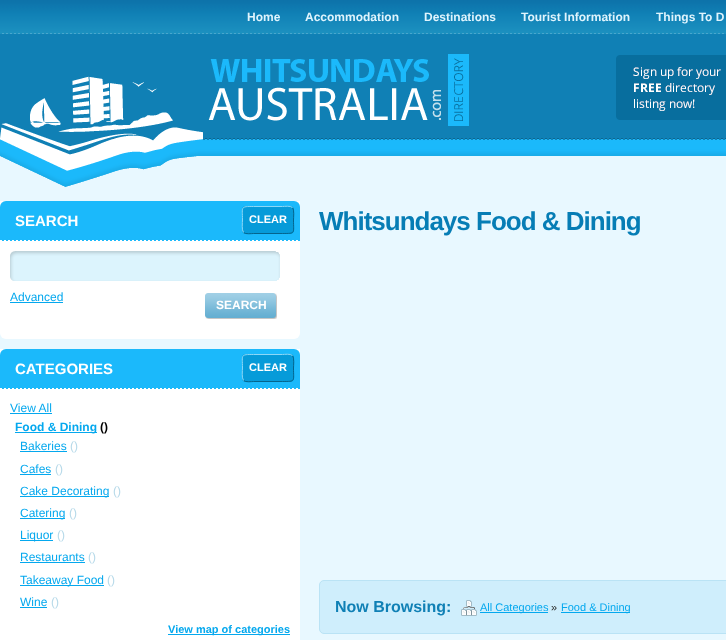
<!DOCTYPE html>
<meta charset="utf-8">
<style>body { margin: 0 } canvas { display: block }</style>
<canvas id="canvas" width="726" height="640"></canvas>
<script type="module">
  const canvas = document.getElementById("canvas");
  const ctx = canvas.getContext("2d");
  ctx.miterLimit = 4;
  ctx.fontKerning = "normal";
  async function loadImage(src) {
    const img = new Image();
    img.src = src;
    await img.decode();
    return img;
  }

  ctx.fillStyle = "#e8f8ff";
  ctx.fillRect(0, 0, 726, 640);
  ctx.fillStyle = "#1080b5";
  ctx.fillRect(0, 34, 726, 106);
  ctx.drawImage(await loadImage("img1.png"), 63, 138, 663, 18);
  ctx.drawImage(await loadImage("img2.png"), 0, 0, 726, 34);
  ctx.font = "bold 12px Liberation Sans";
  ctx.fillStyle = "#dff4fd";
  ctx.fillText("Home", 247, 21);
  ctx.fillText("Accommodation", 305, 21);
  ctx.fillText("Destinations", 424, 21);
  ctx.fillText("Tourist Information", 521, 21);
  ctx.fillText("Things To D", 656, 21);
  ctx.drawImage(await loadImage("img3.png"), 0, 54, 469, 133);
  ctx.drawImage(await loadImage("img4.png"), 616, 55, 110, 65);
  ctx.fillStyle = "#ffffff";
  ctx.beginPath();
  ctx.roundRect(0, 201, 300, 138, [0, 0, 6, 6]);
  ctx.fill();
  ctx.fillStyle = "#1bb9fb";
  ctx.beginPath();
  ctx.roundRect(0, 201, 300, 40, [6, 6, 0, 0]);
  ctx.fill();
  ctx.drawImage(await loadImage("img5.png"), 0, 240, 298, 1);
  ctx.font = "bold 15px Liberation Sans";
  ctx.fillStyle = "#ffffff";
  ctx.fillText("SEARCH", 15, 226);
  ctx.fillStyle = "#069bd9";
  ctx.beginPath();
  ctx.roundRect(242, 206, 52, 28, 4);
  ctx.fill();
  ctx.beginPath();
  ctx.moveTo(292.5, 207.5);
  ctx.bezierCurveTo(294.5, 210, 293.5, 217.5, 293.5, 220);
  ctx.bezierCurveTo(293.5, 233.5, 296, 233.5, 282.5, 233.5);
  ctx.lineTo(253.5, 233.5);
  ctx.bezierCurveTo(252, 233.5, 245.5, 234.5, 243.5, 232.5);
  ctx.strokeStyle = "#04648c";
  ctx.stroke();
  ctx.beginPath();
  ctx.moveTo(243.5, 232.5);
  ctx.bezierCurveTo(241.5, 230, 242.5, 222.5, 242.5, 220);
  ctx.bezierCurveTo(242.5, 206.5, 240, 206.5, 253.5, 206.5);
  ctx.lineTo(282.5, 206.5);
  ctx.bezierCurveTo(284, 206.5, 290.5, 205.5, 292.5, 207.5);
  ctx.strokeStyle = "#8dd8f7";
  ctx.stroke();
  ctx.font = "bold 11px Liberation Sans";
  ctx.fillStyle = "#ffffff";
  ctx.fillText("CLEAR", 249, 223);
  ctx.drawImage(await loadImage("img6.png"), 10, 251, 270, 30);
  ctx.font = "12px Liberation Sans";
  ctx.fillStyle = "#04a8ee";
  ctx.fillText("Advanced", 10, 301);
  ctx.fillRect(10, 302, 53, 1);
  ctx.drawImage(await loadImage("img7.png"), 205, 293, 72, 26);
  ctx.font = "bold 12px Liberation Sans";
  ctx.fillStyle = "#ffffff";
  ctx.fillText("SEARCH", 216, 309);
  ctx.fillRect(0, 349, 300, 291);
  ctx.fillStyle = "#1bb9fb";
  ctx.beginPath();
  ctx.roundRect(0, 349, 300, 40, [6, 6, 0, 0]);
  ctx.fill();
  ctx.drawImage(await loadImage("img5.png"), 0, 388, 298, 1);
  ctx.font = "bold 15px Liberation Sans";
  ctx.fillStyle = "#ffffff";
  ctx.fillText("CATEGORIES", 15, 374);
  ctx.fillStyle = "#069bd9";
  ctx.beginPath();
  ctx.roundRect(242, 354, 52, 28, 4);
  ctx.fill();
  ctx.beginPath();
  ctx.moveTo(292.5, 355.5);
  ctx.bezierCurveTo(294.5, 358, 293.5, 365.5, 293.5, 368);
  ctx.bezierCurveTo(293.5, 381.5, 296, 381.5, 282.5, 381.5);
  ctx.lineTo(253.5, 381.5);
  ctx.bezierCurveTo(252, 381.5, 245.5, 382.5, 243.5, 380.5);
  ctx.strokeStyle = "#04648c";
  ctx.stroke();
  ctx.beginPath();
  ctx.moveTo(243.5, 380.5);
  ctx.bezierCurveTo(241.5, 378, 242.5, 370.5, 242.5, 368);
  ctx.bezierCurveTo(242.5, 354.5, 240, 354.5, 253.5, 354.5);
  ctx.lineTo(282.5, 354.5);
  ctx.bezierCurveTo(284, 354.5, 290.5, 353.5, 292.5, 355.5);
  ctx.strokeStyle = "#8dd8f7";
  ctx.stroke();
  ctx.font = "bold 11px Liberation Sans";
  ctx.fillStyle = "#ffffff";
  ctx.fillText("CLEAR", 249, 371);
  ctx.font = "12px Liberation Sans";
  ctx.fillStyle = "#04a8ee";
  ctx.fillText("View All", 10, 412);
  ctx.fillRect(10, 413, 42, 1);
  ctx.fillRect(15, 432, 82, 1);
  ctx.font = "bold 12px Liberation Sans";
  ctx.fillText("Food & Dining", 15, 431);
  ctx.fillStyle = "#000000";
  ctx.fillText("()", 100, 431);
  ctx.font = "12px Liberation Sans";
  ctx.fillStyle = "#04a8ee";
  ctx.fillText("Bakeries", 20, 450);
  ctx.fillRect(20, 451, 47, 1);
  ctx.fillStyle = "#b6d9e9";
  ctx.fillText("()", 70, 450);
  ctx.fillStyle = "#04a8ee";
  ctx.fillText("Cafes", 20, 473);
  ctx.fillRect(20, 474, 31, 1);
  ctx.fillStyle = "#b6d9e9";
  ctx.fillText("()", 55, 473);
  ctx.fillStyle = "#04a8ee";
  ctx.fillRect(20, 496, 89, 1);
  ctx.fillText("Cake Decorating", 20, 495);
  ctx.fillStyle = "#b6d9e9";
  ctx.fillText("()", 113, 495);
  ctx.fillStyle = "#04a8ee";
  ctx.fillRect(20, 518, 45, 1);
  ctx.fillText("Catering", 20, 517);
  ctx.fillStyle = "#b6d9e9";
  ctx.fillText("()", 69, 517);
  ctx.fillStyle = "#04a8ee";
  ctx.fillRect(20, 540, 33, 1);
  ctx.fillText("Liquor", 20, 539);
  ctx.fillStyle = "#b6d9e9";
  ctx.fillText("()", 57, 539);
  ctx.fillStyle = "#04a8ee";
  ctx.fillText("Restaurants", 20, 561);
  ctx.fillRect(20, 562, 65, 1);
  ctx.fillStyle = "#b6d9e9";
  ctx.fillText("()", 88, 561);
  ctx.fillStyle = "#04a8ee";
  ctx.fillRect(20, 585, 84, 1);
  ctx.fillText("Takeaway Food", 20, 584);
  ctx.fillStyle = "#b6d9e9";
  ctx.fillText("()", 107, 584);
  ctx.fillStyle = "#04a8ee";
  ctx.fillText("Wine", 20, 606);
  ctx.fillRect(20, 607, 27, 1);
  ctx.fillStyle = "#b6d9e9";
  ctx.fillText("()", 51, 606);
  ctx.fillStyle = "#04a8ee";
  ctx.fillRect(168, 634, 122, 1);
  ctx.font = "bold 11px Liberation Sans";
  ctx.fillText("View map of categories", 168, 633);
  ctx.letterSpacing = "-1px";
  ctx.font = "bold 26px Liberation Sans";
  ctx.fillStyle = "#067db5";
  ctx.fillText("Whitsundays Food & Dining", 319, 230);
  ctx.fillStyle = "#cfeefc";
  ctx.beginPath();
  ctx.roundRect(319.5, 580.5, 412, 53, 4.5);
  ctx.fill();
  ctx.strokeStyle = "#bae3f5";
  ctx.stroke();
  ctx.letterSpacing = "0px";
  ctx.font = "bold 16px Liberation Sans";
  ctx.fillStyle = "#1080b5";
  ctx.fillText("Now Browsing:", 335, 612);
  ctx.drawImage(await loadImage("img8.png"), 461, 600, 16, 16);
  ctx.fillStyle = "#04a8ee";
  ctx.fillRect(480, 612, 68, 1);
  ctx.font = "11px Liberation Sans";
  ctx.fillText("All Categories", 480, 611);
  ctx.fillStyle = "#292a27";
  ctx.fillText("»", 551, 611);
  ctx.fillStyle = "#04a8ee";
  ctx.fillRect(561, 612, 69, 1);
  ctx.fillText("Food & Dining", 561, 611);
</script>
